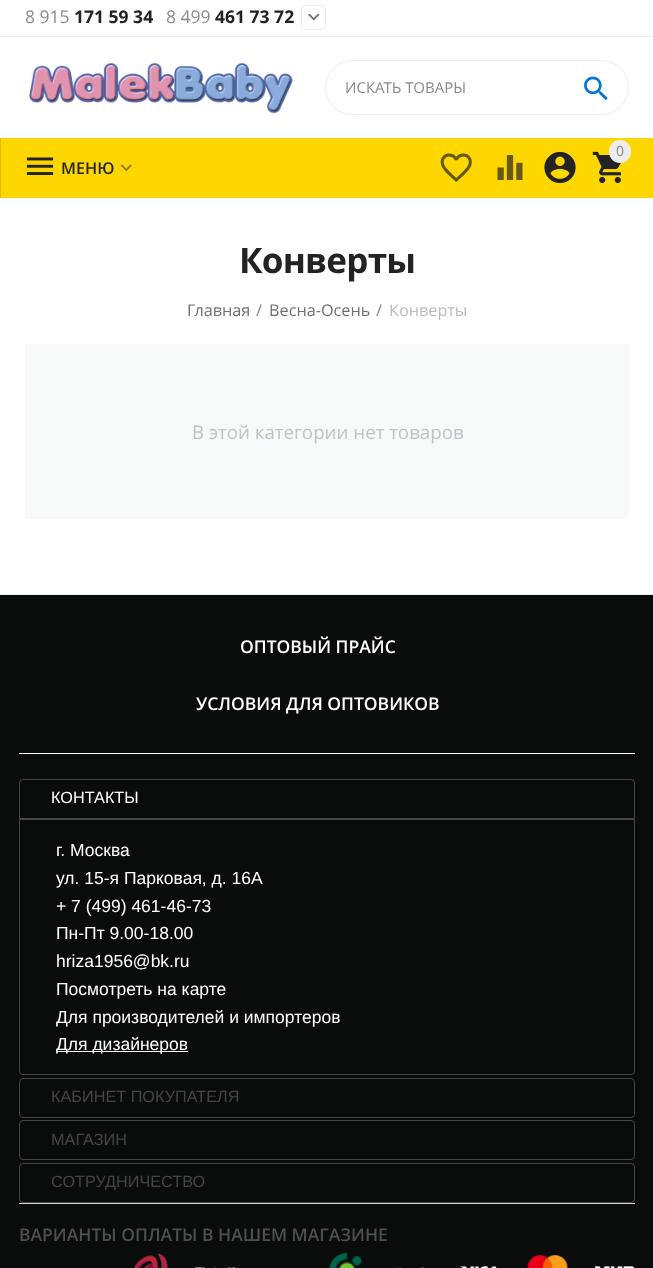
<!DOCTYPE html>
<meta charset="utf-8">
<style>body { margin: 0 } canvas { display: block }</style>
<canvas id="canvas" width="653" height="1268"></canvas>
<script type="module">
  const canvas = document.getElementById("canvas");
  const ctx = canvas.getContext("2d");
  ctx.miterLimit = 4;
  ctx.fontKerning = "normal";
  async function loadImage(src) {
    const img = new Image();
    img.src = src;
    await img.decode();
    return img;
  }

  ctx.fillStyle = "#ffffff";
  ctx.fillRect(0, 0, 653, 1268);
  ctx.font = "17.5px Open Sans";
  ctx.fillStyle = "#898989";
  ctx.fillText("8 915", 25, 23);
  ctx.font = "bold 17.5px Open Sans";
  ctx.fillStyle = "#232323";
  ctx.fillText("171 59 34", 74, 23);
  ctx.font = "17.5px Open Sans";
  ctx.fillStyle = "#898989";
  ctx.fillText("8 499", 166, 23);
  ctx.font = "bold 17.5px Open Sans";
  ctx.fillStyle = "#232323";
  ctx.fillText("461 73 72", 215, 23);
  ctx.beginPath();
  ctx.roundRect(301.5, 5.5, 24, 24, 3.5);
  ctx.strokeStyle = "#ededed";
  ctx.stroke();
  ctx.drawImage(await loadImage("img1.png"), 308, 13, 12, 8);
  ctx.drawImage(await loadImage("img2.png"), 29, 62, 264, 52);
  ctx.beginPath();
  ctx.roundRect(325.5, 60.5, 303, 54, 27);
  ctx.stroke();
  ctx.font = "15px Open Sans";
  ctx.fillStyle = "#898989";
  ctx.fillText("ИСКАТЬ ТОВАРЫ", 345, 93);
  ctx.drawImage(await loadImage("img3.png"), 584, 76, 24, 25);
  ctx.fillStyle = "#fed700";
  ctx.fillRect(1, 138, 652, 60);
  ctx.drawImage(await loadImage("img4.png"), 440, 153, 32, 29);
  ctx.drawImage(await loadImage("img5.png"), 497, 155, 26, 25);
  ctx.drawImage(await loadImage("img6.png"), 544, 151, 32, 33);
  ctx.drawImage(await loadImage("img7.png"), 592, 151, 30, 33);
  ctx.fillStyle = "#ededed";
  ctx.beginPath();
  ctx.roundRect(609, 140, 22, 23, 11);
  ctx.fill();
  ctx.font = "14px Open Sans";
  ctx.fillStyle = "#808080";
  ctx.fillText("0", 616, 156);
  ctx.fillStyle = "#ededed";
  ctx.fillRect(0, 36, 653, 1);
  ctx.fillStyle = "#dfbd00";
  ctx.fillRect(0, 138, 1, 60);
  ctx.drawImage(await loadImage("img8.png"), 26, 157, 28, 18);
  ctx.font = "600 16.25px Open Sans";
  ctx.fillStyle = "#232323";
  ctx.fillText("МЕНЮ", 61, 174);
  ctx.drawImage(await loadImage("img9.png"), 120, 164, 12, 8);
  ctx.letterSpacing = "-0.75px";
  ctx.font = "bold 35px Open Sans";
  ctx.fillText("Конверты", 239, 273);
  ctx.letterSpacing = "0px";
  ctx.font = "16.25px Open Sans";
  ctx.fillStyle = "#707070";
  ctx.fillText("Главная", 187, 316);
  ctx.fillStyle = "#898989";
  ctx.fillText("/", 256, 316);
  ctx.fillStyle = "#707070";
  ctx.fillText("Весна-Осень", 269, 316);
  ctx.fillStyle = "#898989";
  ctx.fillText("/", 376, 316);
  ctx.fillStyle = "#bcbcbc";
  ctx.fillText("Конверты", 389, 316);
  ctx.fillStyle = "#f8f9f9";
  ctx.fillRect(25, 344, 604, 175);
  ctx.font = "18.75px Open Sans";
  ctx.fillStyle = "#bdc3c7";
  ctx.fillText("В этой категории нет товаров", 192, 439);
  ctx.fillStyle = "#ededed";
  ctx.fillRect(0, 594, 653, 1);
  ctx.fillStyle = "#0a0c0b";
  ctx.fillRect(0, 595, 653, 673);
  ctx.fillStyle = "#ffffff";
  ctx.fillRect(19, 753, 616, 1);
  ctx.font = "600 17.5px Open Sans";
  ctx.fillText("ОПТОВЫЙ ПРАЙС", 240, 653);
  ctx.fillText("УСЛОВИЯ ДЛЯ ОПТОВИКОВ", 196, 710);
  ctx.beginPath();
  ctx.roundRect(19.5, 779.5, 615, 39, [3.5, 3.5, 0, 0]);
  ctx.strokeStyle = "#464646";
  ctx.stroke();
  ctx.font = "16.25px Liberation Sans";
  ctx.fillText("КОНТАКТЫ", 51, 803);
  ctx.beginPath();
  ctx.roundRect(19.5, 819.5, 615, 255, [0, 0, 3.5, 3.5]);
  ctx.stroke();
  ctx.font = "17.5px Liberation Sans";
  ctx.fillText("г. Москва", 56, 856);
  ctx.fillText("ул. 15-я Парковая, д. 16А", 56, 884);
  ctx.fillText("+ 7 (499) 461-46-73", 56, 912);
  ctx.fillText("Пн-Пт 9.00-18.00", 56, 939);
  ctx.fillText("hriza1956@bk.ru", 56, 967);
  ctx.fillText("Посмотреть на карте", 56, 995);
  ctx.fillText("Для производителей и импортеров", 56, 1023);
  ctx.fillRect(56, 1051, 132, 1);
  ctx.fillText("Для дизайнеров", 56, 1050);
  ctx.beginPath();
  ctx.roundRect(19.5, 1078.5, 615, 39, 3.5);
  ctx.stroke();
  ctx.font = "16.25px Liberation Sans";
  ctx.fillStyle = "#454545";
  ctx.fillText("КАБИНЕТ ПОКУПАТЕЛЯ", 51, 1102);
  ctx.beginPath();
  ctx.roundRect(19.5, 1120.5, 615, 39, 3.5);
  ctx.stroke();
  ctx.fillText("МАГАЗИН", 51, 1145);
  ctx.beginPath();
  ctx.roundRect(19.5, 1163.5, 615, 39, 3.5);
  ctx.stroke();
  ctx.fillText("СОТРУДНИЧЕСТВО", 51, 1187);
  ctx.fillStyle = "#d5d5d5";
  ctx.fillRect(19, 1203, 616, 1);
  ctx.font = "600 17.5px Open Sans";
  ctx.fillStyle = "#4f4f4f";
  ctx.fillText("ВАРИАНТЫ ОПЛАТЫ В НАШЕМ МАГАЗИНЕ", 19, 1241);
  ctx.drawImage(await loadImage("img10.png"), 133, 1253, 35, 15);
  ctx.drawImage(await loadImage("img11.png"), 195, 1267, 40, 1);
  ctx.drawImage(await loadImage("img12.png"), 328, 1252, 35, 16);
  ctx.drawImage(await loadImage("img13.png"), 393, 1267, 32, 1);
  ctx.drawImage(await loadImage("img14.png"), 460, 1266, 37, 2);
  ctx.drawImage(await loadImage("img15.png"), 527, 1255, 41, 13);
  ctx.drawImage(await loadImage("img16.png"), 595, 1266, 40, 2);
</script>
